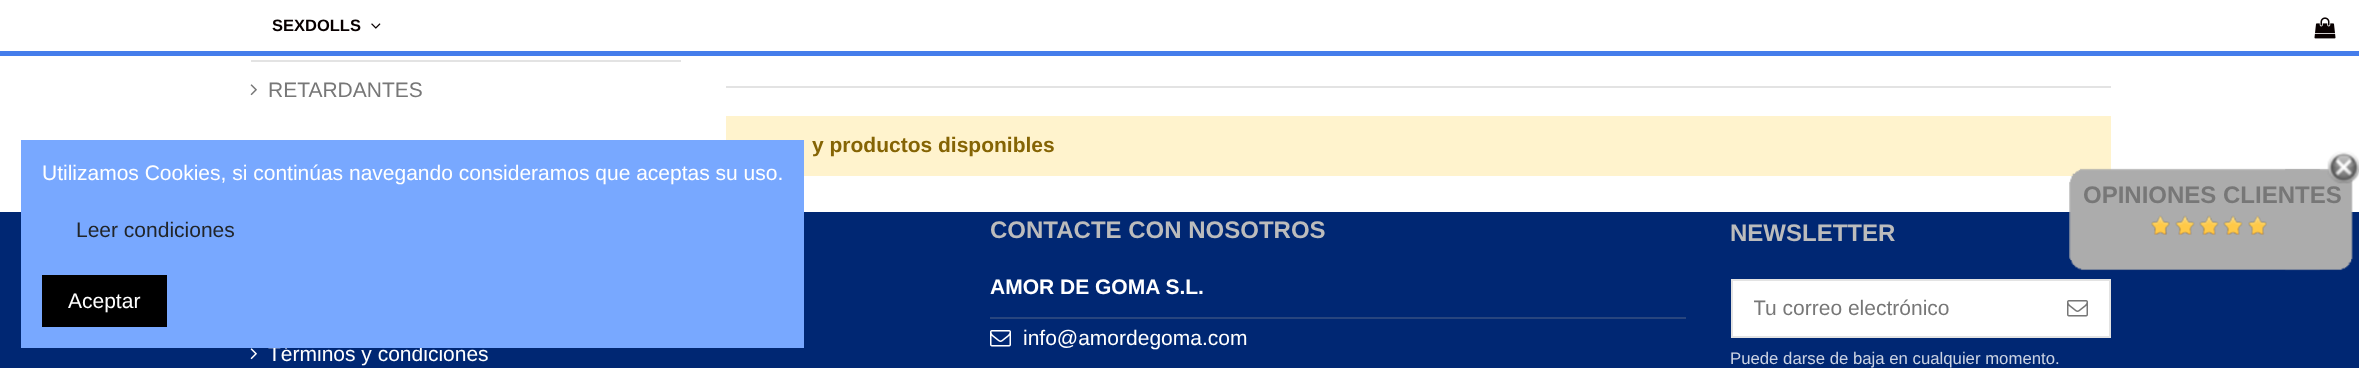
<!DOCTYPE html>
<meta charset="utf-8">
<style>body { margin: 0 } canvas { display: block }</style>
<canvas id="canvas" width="2359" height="368"></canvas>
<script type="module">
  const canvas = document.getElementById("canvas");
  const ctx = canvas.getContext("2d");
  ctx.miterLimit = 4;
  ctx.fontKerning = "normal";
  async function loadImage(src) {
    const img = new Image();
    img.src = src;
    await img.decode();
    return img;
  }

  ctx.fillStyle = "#ffffff";
  ctx.fillRect(0, 0, 2359, 368);
  ctx.fillStyle = "#457deb";
  ctx.fillRect(0, 51, 2359, 5);
  ctx.font = "bold 16.5px Liberation Sans";
  ctx.fillStyle = "#080000";
  ctx.fillText("SEXDOLLS", 272, 31);
  ctx.drawImage(await loadImage("img1.png"), 371, 23, 10, 6);
  ctx.drawImage(await loadImage("img2.png"), 2314, 17, 22, 22);
  ctx.fillStyle = "#e3e3e3";
  ctx.fillRect(251, 60, 430, 2);
  ctx.drawImage(await loadImage("img3.png"), 250, 84, 7, 12);
  ctx.font = "21px Liberation Sans";
  ctx.fillStyle = "#777777";
  ctx.fillText("RETARDANTES", 268, 97);
  ctx.fillStyle = "#e3e3e3";
  ctx.fillRect(726, 86, 1385, 2);
  ctx.fillStyle = "#fff3cd";
  ctx.fillRect(726, 116, 1385, 60);
  ctx.font = "bold 21px Liberation Sans";
  ctx.fillStyle = "#856404";
  ctx.fillText("y productos disponibles", 812, 152);
  ctx.fillStyle = "#002773";
  ctx.fillRect(0, 212, 2359, 156);
  ctx.drawImage(await loadImage("img5.png"), 2069, 168, 284, 103);
  ctx.drawImage(await loadImage("img4.png"), 2327, 151, 32, 33);
  ctx.font = "bold 24px Liberation Sans";
  ctx.fillStyle = "#777777";
  ctx.fillText("OPINIONES CLIENTES", 2083, 203);
  ctx.drawImage(await loadImage("img6.png"), 2151, 215, 116, 20);
  ctx.drawImage(await loadImage("img7.png"), 250, 348, 7, 12);
  ctx.font = "21px Liberation Sans";
  ctx.fillStyle = "#ffffff";
  ctx.fillText("Términos y condiciones", 268, 361);
  ctx.font = "bold 24px Liberation Sans";
  ctx.fillStyle = "#bcbcbc";
  ctx.fillText("CONTACTE CON NOSOTROS", 990, 238);
  ctx.font = "bold 21px Liberation Sans";
  ctx.fillStyle = "#ffffff";
  ctx.fillText("AMOR DE GOMA S.L.", 990, 294);
  ctx.fillStyle = "#28457e";
  ctx.fillRect(990, 317, 696, 2);
  ctx.drawImage(await loadImage("img8.png"), 990, 330, 21, 17);
  ctx.font = "21px Liberation Sans";
  ctx.fillStyle = "#ffffff";
  ctx.fillText("info@amordegoma.com", 1023, 345);
  ctx.font = "bold 24px Liberation Sans";
  ctx.fillStyle = "#bcbcbc";
  ctx.fillText("NEWSLETTER", 1730, 241);
  ctx.fillStyle = "#ffffff";
  ctx.beginPath();
  ctx.rect(1732, 280, 378, 57);
  ctx.fill();
  ctx.strokeStyle = "#e3e3e3";
  ctx.lineWidth = 2;
  ctx.stroke();
  ctx.save();
  ctx.beginPath();
  ctx.rect(1754, 296, 271, 24);
  ctx.clip();
  ctx.font = "21px Liberation Sans";
  ctx.fillStyle = "#777777";
  ctx.fillText("Tu correo electrónico", 1753, 315);
  ctx.restore();
  ctx.drawImage(await loadImage("img9.png"), 2067, 300, 21, 17);
  ctx.font = "16.75px Liberation Sans";
  ctx.fillStyle = "#ccd4e3";
  ctx.fillText("Puede darse de baja en cualquier momento.", 1730, 364);
  ctx.fillStyle = "#78a8ff";
  ctx.fillRect(21, 140, 783, 208);
  ctx.font = "21px Liberation Sans";
  ctx.fillStyle = "#ffffff";
  ctx.fillText("Utilizamos Cookies, si continúas navegando consideramos que aceptas su uso.", 42, 180);
  ctx.fillStyle = "#212529";
  ctx.fillText("Leer condiciones", 76, 237);
  ctx.fillStyle = "#000000";
  ctx.fillRect(42, 275, 125, 52);
  ctx.fillStyle = "#ffffff";
  ctx.fillText("Aceptar", 68, 308);
</script>
